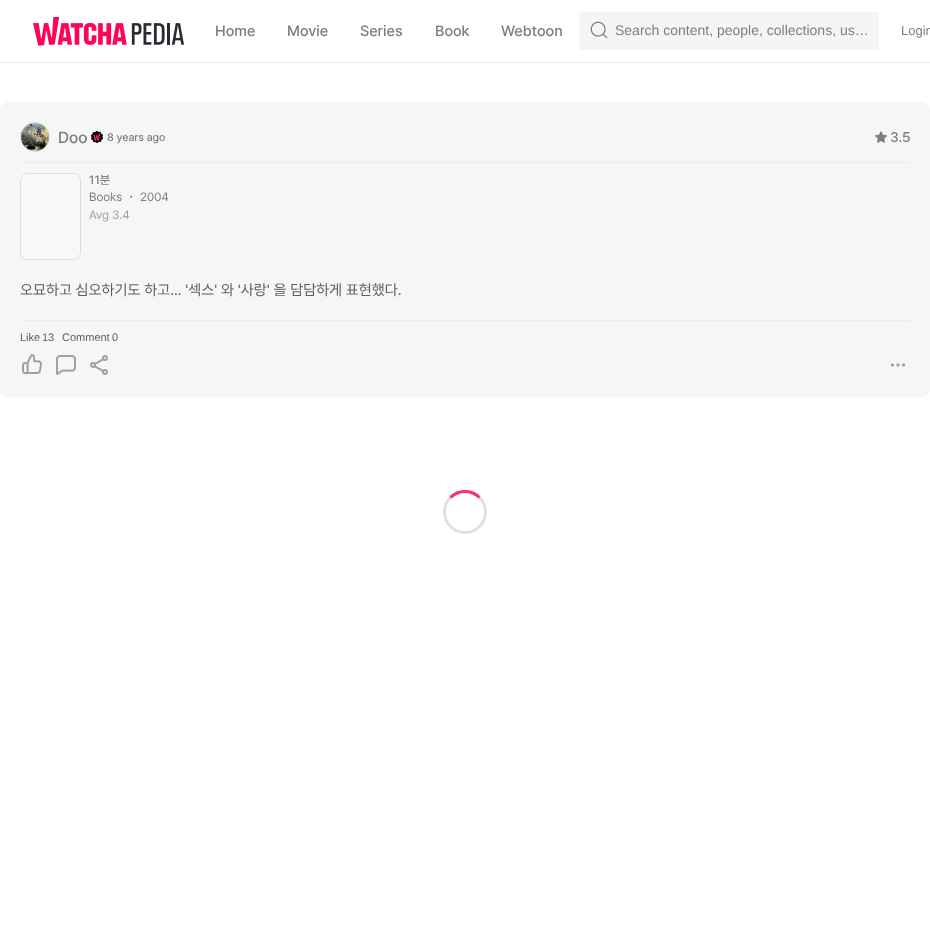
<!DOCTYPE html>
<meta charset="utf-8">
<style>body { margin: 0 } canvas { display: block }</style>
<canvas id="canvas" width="930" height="931"></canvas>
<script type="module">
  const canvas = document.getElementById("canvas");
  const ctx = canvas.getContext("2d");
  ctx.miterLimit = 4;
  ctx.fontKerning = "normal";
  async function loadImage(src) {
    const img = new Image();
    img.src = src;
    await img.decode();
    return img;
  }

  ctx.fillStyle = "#ffffff";
  ctx.fillRect(0, 0, 930, 931);
  ctx.fillStyle = "#ebebeb";
  ctx.fillRect(0, 62, 930, 1);
  ctx.drawImage(await loadImage("img1.png"), 33, 17, 151, 29);
  ctx.font = "500 15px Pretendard";
  ctx.fillStyle = "#7e7e7e";
  ctx.fillText("Home", 215, 36);
  ctx.fillText("Movie", 287, 36);
  ctx.fillText("Series", 360, 36);
  ctx.fillText("Book", 435, 36);
  ctx.fillText("Webtoon", 501, 36);
  ctx.fillStyle = "#f5f5f5";
  ctx.beginPath();
  ctx.roundRect(579, 12, 300, 38, 2);
  ctx.fill();
  ctx.drawImage(await loadImage("img2.png"), 590, 21, 18, 18);
  ctx.font = "14px Liberation Sans";
  ctx.fillStyle = "#7e7e7e";
  ctx.fillText("Search content, people, collections, us…", 615, 35);
  ctx.font = "13px Liberation Sans";
  ctx.fillText("Login", 901, 35);
  ctx.fillStyle = "#f6f6f6";
  ctx.beginPath();
  ctx.roundRect(0, 102, 930, 295, 8);
  ctx.fill();
  ctx.beginPath();
  ctx.arc(35, 137, 14.5, 0, Math.PI * 2);
  ctx.strokeStyle = "#dddddd";
  ctx.stroke();
  ctx.drawImage(await loadImage("img3.png"), 21, 123, 28, 28);
  ctx.font = "500 16px Pretendard";
  ctx.fillStyle = "#7e7e7e";
  ctx.fillText("Doo", 58, 143);
  ctx.drawImage(await loadImage("img4.png"), 91, 131, 12, 12);
  ctx.font = "500 11px Pretendard";
  ctx.fillText("8 years ago", 107, 141);
  ctx.drawImage(await loadImage("img5.png"), 875, 131, 12, 12);
  ctx.font = "500 14px Pretendard";
  ctx.fillText("3.5", 890, 142);
  ctx.fillStyle = "#ededed";
  ctx.fillRect(20, 162, 890, 1);
  ctx.beginPath();
  ctx.roundRect(20.5, 173.5, 60, 86, 7.5);
  ctx.stroke();
  ctx.fillStyle = "#f8f8f8";
  ctx.beginPath();
  ctx.roundRect(21, 174, 59, 85, 7);
  ctx.fill();
  ctx.font = "500 12px Pretendard";
  ctx.fillStyle = "#7e7e7e";
  ctx.fillText("11분", 89, 184);
  ctx.font = "12px Pretendard";
  ctx.fillText("Books", 89, 201);
  ctx.font = "500 12px WenQuanYi Zen Hei";
  ctx.fillText("・", 125, 201);
  ctx.font = "12px Pretendard";
  ctx.fillText("2004", 140, 201);
  ctx.fillStyle = "#a0a0a0";
  ctx.fillText("Avg 3.4", 89, 219);
  ctx.font = "15px Pretendard";
  ctx.fillStyle = "#5e5e5e";
  ctx.fillText("오묘하고 심오하기도 하고... '섹스' 와 '사랑' 을 담담하게 표현했다.", 20, 295);
  ctx.fillStyle = "#ededed";
  ctx.fillRect(20, 320, 890, 1);
  ctx.font = "11px Liberation Sans";
  ctx.fillStyle = "#5e5e5e";
  ctx.fillText("Like", 20, 341);
  ctx.fillText("13", 42, 341);
  ctx.fillText("Comment", 62, 341);
  ctx.fillText("0", 112, 341);
  ctx.drawImage(await loadImage("img6.png"), 22, 354, 20, 20);
  ctx.drawImage(await loadImage("img7.png"), 56, 355, 20, 20);
  ctx.drawImage(await loadImage("img8.png"), 90, 355, 18, 20);
  ctx.drawImage(await loadImage("img9.png"), 890, 363, 16, 4);
  ctx.beginPath();
  ctx.arc(465, 512, 20.5, 0, Math.PI * 2);
  ctx.strokeStyle = "#e0e0e0";
  ctx.lineWidth = 3;
  ctx.stroke();
  ctx.beginPath();
  ctx.moveTo(450.5, 497.5);
  ctx.bezierCurveTo(458.5, 489.5, 471.5, 489.5, 479.5, 497.5);
  ctx.strokeStyle = "#ff2f6e";
  ctx.stroke();
</script>
